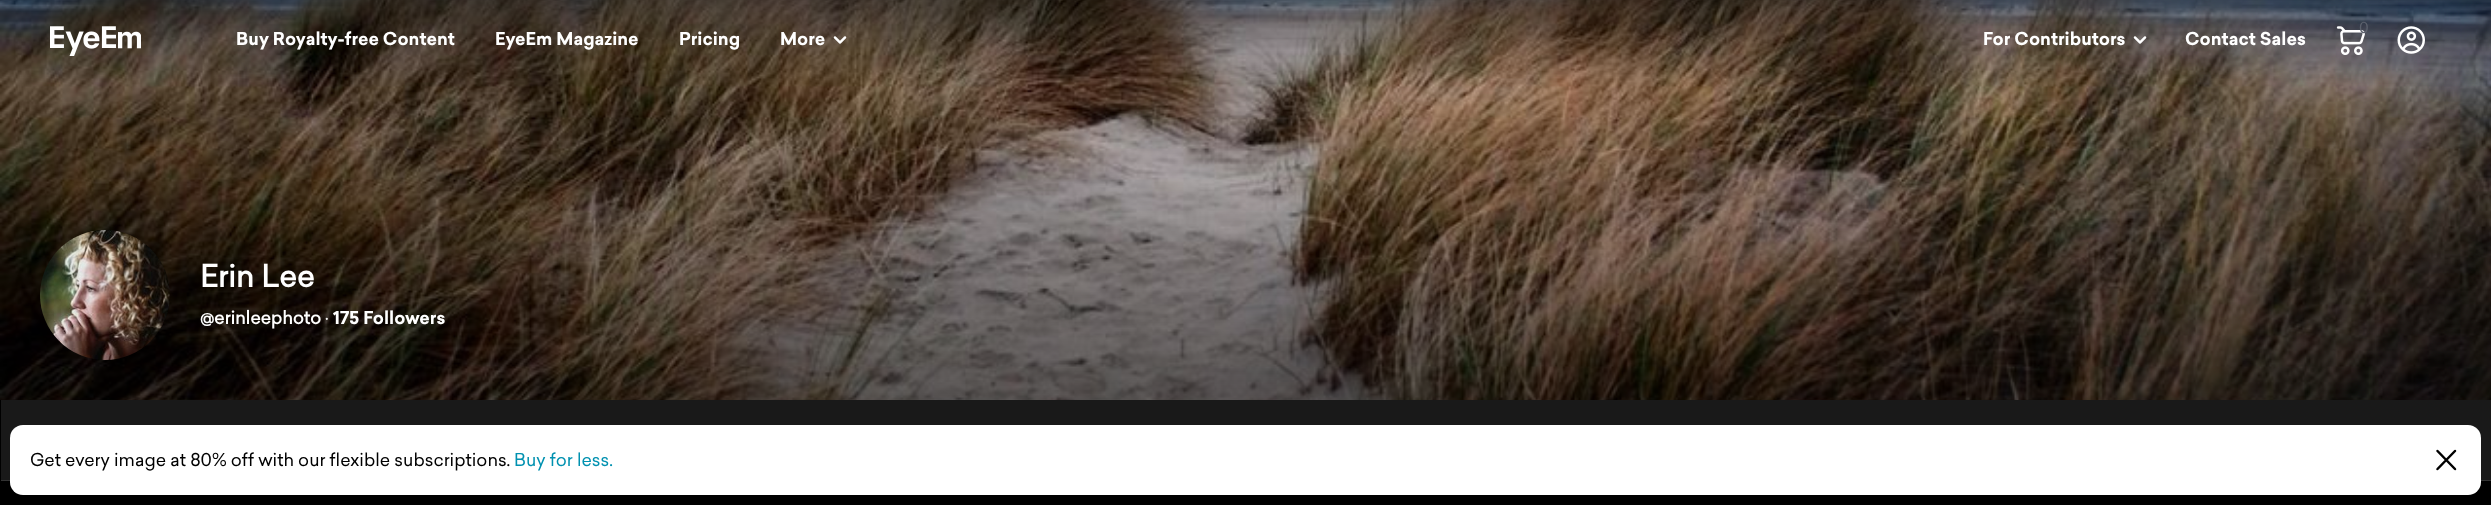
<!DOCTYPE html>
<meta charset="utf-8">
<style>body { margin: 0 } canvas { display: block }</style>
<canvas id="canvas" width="2491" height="505"></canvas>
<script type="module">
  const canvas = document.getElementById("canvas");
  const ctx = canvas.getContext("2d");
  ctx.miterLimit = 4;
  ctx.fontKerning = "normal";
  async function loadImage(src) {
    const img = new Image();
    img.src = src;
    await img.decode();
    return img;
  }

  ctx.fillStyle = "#000000";
  ctx.fillRect(0, 0, 2491, 505);
  ctx.drawImage(await loadImage("img6.png"), 0, 0, 2491, 400);
  ctx.drawImage(await loadImage("img1.png"), 50, 26, 91, 30);
  ctx.font = "bold 17.5px 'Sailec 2'";
  ctx.fillStyle = "#ffffff";
  ctx.fillText("Buy Royalty-free Content", 236, 45);
  ctx.fillText("EyeEm Magazine", 495, 45);
  ctx.fillText("Pricing", 679, 45);
  ctx.fillText("More", 780, 45);
  ctx.drawImage(await loadImage("img2.png"), 833, 36, 14, 8);
  ctx.fillText("For Contributors", 1983, 45);
  ctx.drawImage(await loadImage("img3.png"), 2133, 36, 14, 8);
  ctx.fillText("Contact Sales", 2185, 45);
  ctx.drawImage(await loadImage("img4.png"), 2336, 26, 29, 29);
  ctx.font = "15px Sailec";
  ctx.fillStyle = "#5c616d";
  ctx.fillText("0", 2359, 33);
  ctx.drawImage(await loadImage("img5.png"), 2397, 26, 28, 28);
  ctx.drawImage(await loadImage("img7.png"), 40, 230, 130, 130);
  ctx.font = "bold 30px Sailec";
  ctx.fillStyle = "#ffffff";
  ctx.fillText("Erin Lee", 200, 287);
  ctx.font = "bold 17.5px Sailec";
  ctx.fillText("@erinleephoto", 200, 324);
  ctx.font = "17.5px Sailec";
  ctx.fillText("·", 325, 324);
  ctx.font = "bold 17.5px 'Sailec 2'";
  ctx.fillText("175 Followers", 333, 324);
  ctx.fillStyle = "#191919";
  ctx.fillRect(1, 400, 2490, 80);
  ctx.fillStyle = "#333333";
  ctx.fillRect(0, 480, 2491, 1);
  ctx.fillStyle = "#000000";
  ctx.fillRect(0, 480, 1, 1);
  ctx.fillStyle = "#ffffff";
  ctx.beginPath();
  ctx.roundRect(10, 425, 2471, 70, 13);
  ctx.fill();
  ctx.font = "17.5px Sailec";
  ctx.fillStyle = "#000000";
  ctx.fillText("Get every image at 80% off with our flexible subscriptions.", 30, 466);
  ctx.fillStyle = "#0091b0";
  ctx.fillText("Buy for less.", 514, 466);
  ctx.beginPath();
  ctx.moveTo(2455, 451);
  ctx.lineTo(2437.5, 469);
  ctx.moveTo(2437.5, 451);
  ctx.lineTo(2455, 469);
  ctx.strokeStyle = "#000000";
  ctx.lineWidth = 2.5;
  ctx.lineCap = "round";
  ctx.lineJoin = "round";
  ctx.stroke();
</script>
